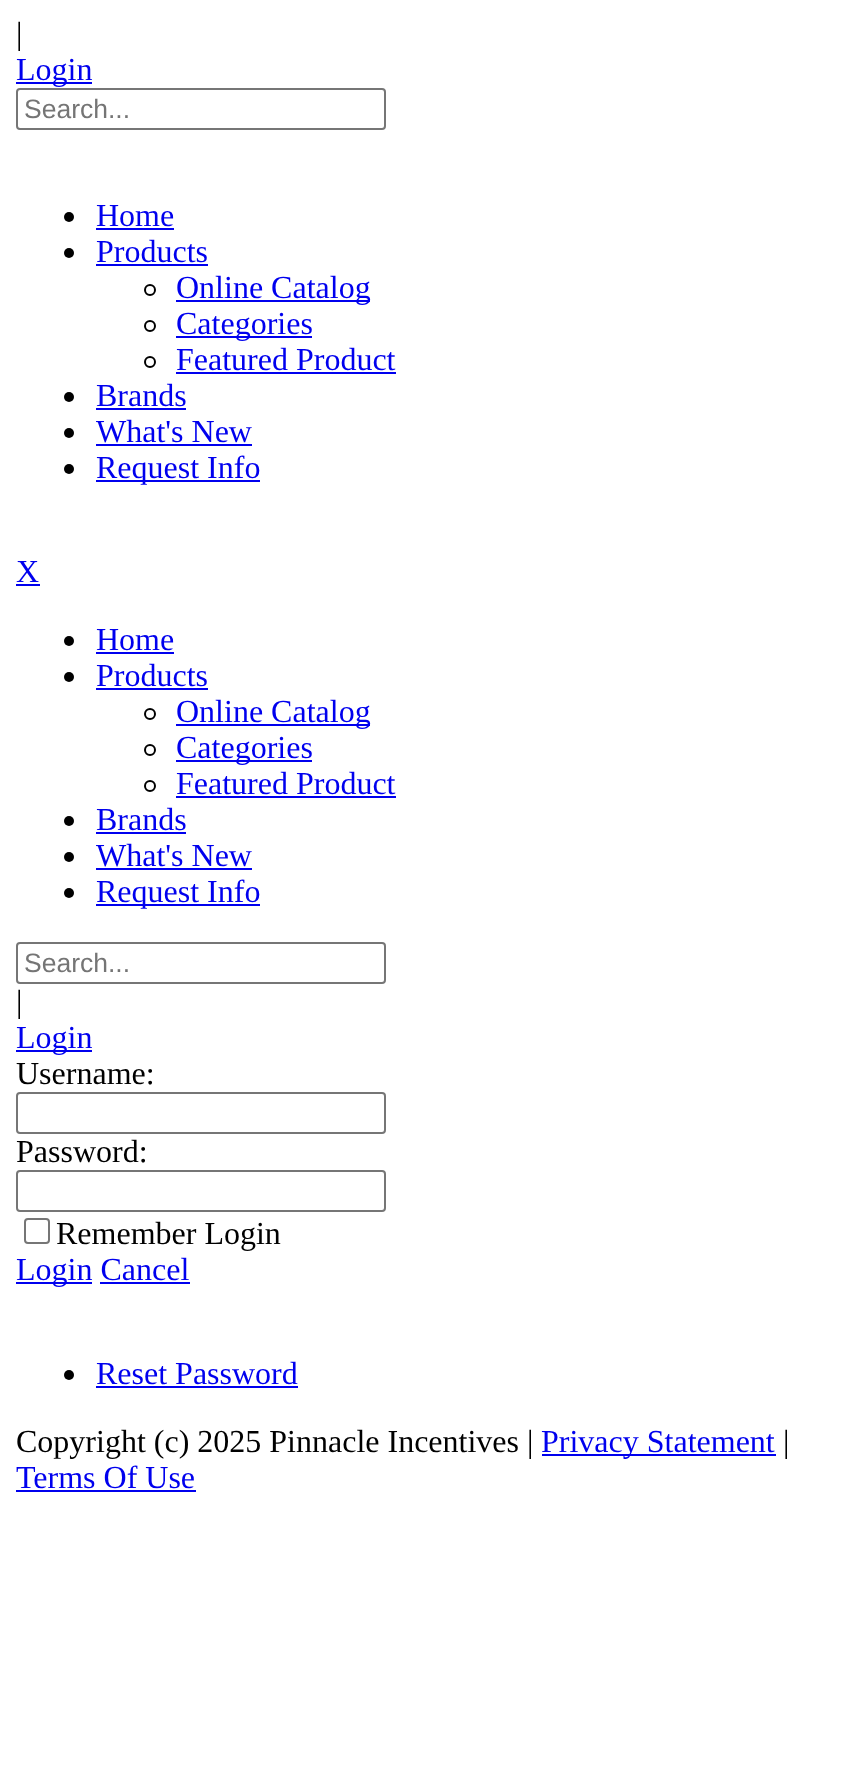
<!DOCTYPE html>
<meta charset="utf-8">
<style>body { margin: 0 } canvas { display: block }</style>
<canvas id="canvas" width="859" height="1787"></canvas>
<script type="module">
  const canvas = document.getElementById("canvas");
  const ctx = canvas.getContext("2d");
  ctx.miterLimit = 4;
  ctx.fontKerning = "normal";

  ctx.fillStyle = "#ffffff";
  ctx.fillRect(0, 0, 859, 1787);
  ctx.font = "32px Liberation Serif";
  ctx.fillStyle = "#000000";
  ctx.fillText("|", 16, 44);
  ctx.fillStyle = "#0000ee";
  ctx.fillRect(16, 82, 76, 2);
  ctx.fillText("Login", 16, 80);
  ctx.beginPath();
  ctx.roundRect(17, 89, 368, 40, 3);
  ctx.strokeStyle = "#767676";
  ctx.lineWidth = 2;
  ctx.stroke();
  ctx.font = "26.5px Liberation Sans";
  ctx.fillStyle = "#757575";
  ctx.fillText("Search...", 24, 118);
  ctx.fillStyle = "#000000";
  ctx.beginPath();
  ctx.arc(69, 217, 5, 0, Math.PI * 2);
  ctx.fill();
  ctx.font = "32px Liberation Serif";
  ctx.fillStyle = "#0000ee";
  ctx.fillText("Home", 96, 226);
  ctx.fillRect(96, 228, 78, 2);
  ctx.fillStyle = "#000000";
  ctx.beginPath();
  ctx.arc(69, 253, 5, 0, Math.PI * 2);
  ctx.fill();
  ctx.fillStyle = "#0000ee";
  ctx.fillText("Products", 96, 262);
  ctx.fillRect(96, 264, 112, 2);
  ctx.beginPath();
  ctx.arc(150, 290, 5, 0, Math.PI * 2);
  ctx.strokeStyle = "#000000";
  ctx.stroke();
  ctx.fillRect(176, 300, 194, 2);
  ctx.fillText("Online Catalog", 176, 298);
  ctx.beginPath();
  ctx.arc(150, 326, 5, 0, Math.PI * 2);
  ctx.stroke();
  ctx.fillRect(176, 336, 136, 2);
  ctx.fillText("Categories", 176, 334);
  ctx.beginPath();
  ctx.arc(150, 362, 5, 0, Math.PI * 2);
  ctx.stroke();
  ctx.fillText("Featured Product", 176, 370);
  ctx.fillRect(176, 372, 220, 2);
  ctx.fillStyle = "#000000";
  ctx.beginPath();
  ctx.arc(69, 397, 5, 0, Math.PI * 2);
  ctx.fill();
  ctx.fillStyle = "#0000ee";
  ctx.fillText("Brands", 96, 406);
  ctx.fillRect(96, 408, 90, 2);
  ctx.fillStyle = "#000000";
  ctx.beginPath();
  ctx.arc(69, 433, 5, 0, Math.PI * 2);
  ctx.fill();
  ctx.fillStyle = "#0000ee";
  ctx.fillText("What's New", 96, 442);
  ctx.fillRect(96, 444, 156, 2);
  ctx.fillStyle = "#000000";
  ctx.beginPath();
  ctx.arc(69, 469, 5, 0, Math.PI * 2);
  ctx.fill();
  ctx.fillStyle = "#0000ee";
  ctx.fillRect(96, 480, 164, 2);
  ctx.fillText("Request Info", 96, 478);
  ctx.fillText("X", 16, 582);
  ctx.fillRect(16, 584, 24, 2);
  ctx.fillStyle = "#000000";
  ctx.beginPath();
  ctx.arc(69, 641, 5, 0, Math.PI * 2);
  ctx.fill();
  ctx.fillStyle = "#0000ee";
  ctx.fillText("Home", 96, 650);
  ctx.fillRect(96, 652, 78, 2);
  ctx.fillStyle = "#000000";
  ctx.beginPath();
  ctx.arc(69, 677, 5, 0, Math.PI * 2);
  ctx.fill();
  ctx.fillStyle = "#0000ee";
  ctx.fillText("Products", 96, 686);
  ctx.fillRect(96, 688, 112, 2);
  ctx.beginPath();
  ctx.arc(150, 714, 5, 0, Math.PI * 2);
  ctx.stroke();
  ctx.fillRect(176, 724, 194, 2);
  ctx.fillText("Online Catalog", 176, 722);
  ctx.beginPath();
  ctx.arc(150, 750, 5, 0, Math.PI * 2);
  ctx.stroke();
  ctx.fillRect(176, 760, 136, 2);
  ctx.fillText("Categories", 176, 758);
  ctx.beginPath();
  ctx.arc(150, 786, 5, 0, Math.PI * 2);
  ctx.stroke();
  ctx.fillText("Featured Product", 176, 794);
  ctx.fillRect(176, 796, 220, 2);
  ctx.fillStyle = "#000000";
  ctx.beginPath();
  ctx.arc(69, 821, 5, 0, Math.PI * 2);
  ctx.fill();
  ctx.fillStyle = "#0000ee";
  ctx.fillText("Brands", 96, 830);
  ctx.fillRect(96, 832, 90, 2);
  ctx.fillStyle = "#000000";
  ctx.beginPath();
  ctx.arc(69, 857, 5, 0, Math.PI * 2);
  ctx.fill();
  ctx.fillStyle = "#0000ee";
  ctx.fillText("What's New", 96, 866);
  ctx.fillRect(96, 868, 156, 2);
  ctx.fillStyle = "#000000";
  ctx.beginPath();
  ctx.arc(69, 893, 5, 0, Math.PI * 2);
  ctx.fill();
  ctx.fillStyle = "#0000ee";
  ctx.fillRect(96, 904, 164, 2);
  ctx.fillText("Request Info", 96, 902);
  ctx.beginPath();
  ctx.roundRect(17, 943, 368, 40, 3);
  ctx.strokeStyle = "#767676";
  ctx.stroke();
  ctx.font = "26.5px Liberation Sans";
  ctx.fillStyle = "#757575";
  ctx.fillText("Search...", 24, 972);
  ctx.font = "32px Liberation Serif";
  ctx.fillStyle = "#000000";
  ctx.fillText("|", 16, 1012);
  ctx.fillStyle = "#0000ee";
  ctx.fillRect(16, 1050, 76, 2);
  ctx.fillText("Login", 16, 1048);
  ctx.fillStyle = "#000000";
  ctx.fillText("Username:", 16, 1084);
  ctx.beginPath();
  ctx.roundRect(17, 1093, 368, 40, 3);
  ctx.stroke();
  ctx.fillText("Password:", 16, 1162);
  ctx.beginPath();
  ctx.roundRect(17, 1171, 368, 40, 3);
  ctx.stroke();
  ctx.beginPath();
  ctx.roundRect(25, 1219, 24, 24, 3);
  ctx.stroke();
  ctx.fillText("Remember Login", 56, 1244);
  ctx.fillStyle = "#0000ee";
  ctx.fillRect(16, 1282, 76, 2);
  ctx.fillText("Login Cancel", 16, 1280);
  ctx.fillRect(100, 1282, 90, 2);
  ctx.fillStyle = "#000000";
  ctx.beginPath();
  ctx.arc(69, 1375, 5, 0, Math.PI * 2);
  ctx.fill();
  ctx.fillStyle = "#0000ee";
  ctx.fillText("Reset Password", 96, 1384);
  ctx.fillRect(96, 1386, 202, 2);
  ctx.fillStyle = "#000000";
  ctx.fillText("Copyright (c) 2025 Pinnacle Incentives |", 16, 1452);
  ctx.fillStyle = "#0000ee";
  ctx.fillRect(542, 1454, 234, 2);
  ctx.fillText("Privacy Statement", 541, 1452);
  ctx.fillStyle = "#000000";
  ctx.fillText("|", 783, 1452);
  ctx.fillStyle = "#0000ee";
  ctx.fillText("Terms Of Use", 16, 1488);
  ctx.fillRect(16, 1490, 180, 2);
</script>
